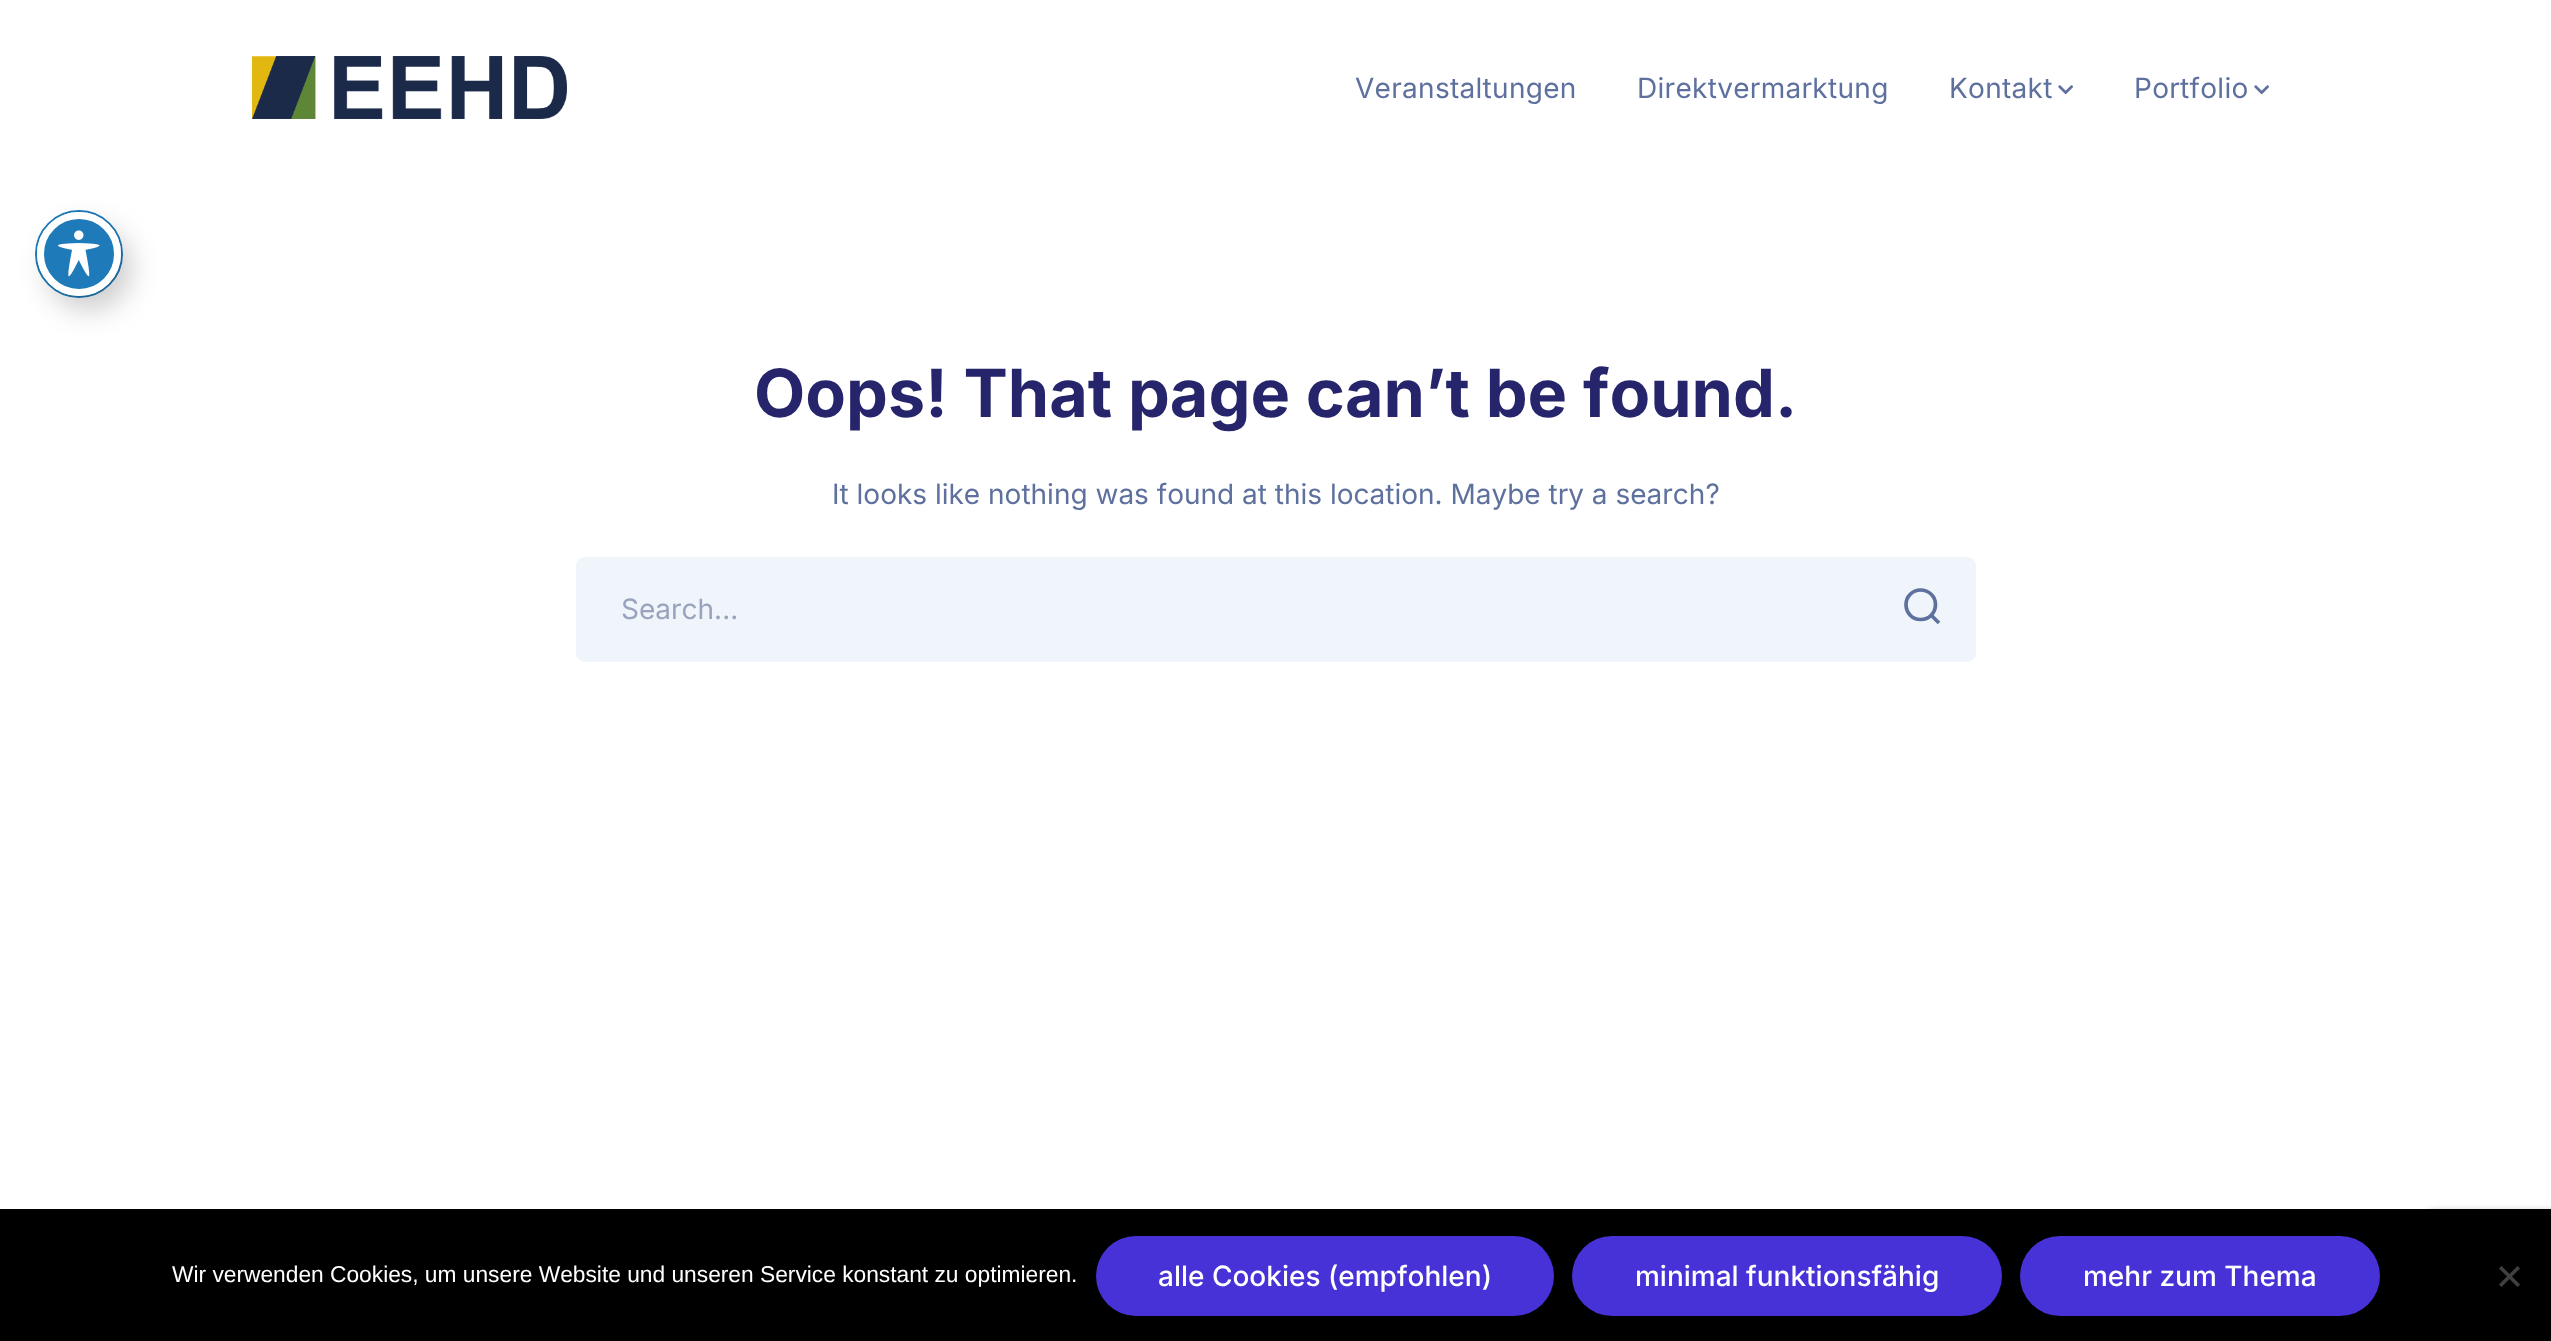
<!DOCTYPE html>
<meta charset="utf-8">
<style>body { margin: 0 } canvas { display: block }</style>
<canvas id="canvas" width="2551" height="1341"></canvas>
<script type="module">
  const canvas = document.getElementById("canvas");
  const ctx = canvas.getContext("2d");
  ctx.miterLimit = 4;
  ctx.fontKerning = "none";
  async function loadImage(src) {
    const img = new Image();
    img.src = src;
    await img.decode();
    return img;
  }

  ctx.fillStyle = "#ffffff";
  ctx.fillRect(0, 0, 2551, 1341);
  ctx.beginPath();
  ctx.arc(79, 254, 43, 0, Math.PI * 2);
  ctx.strokeStyle = "#1e7ab9";
  ctx.lineWidth = 2;
  ctx.stroke();
  ctx.fillStyle = "rgba(0, 0, 0, 0.2)";
  ctx.filter = "blur(14px)";
  ctx.beginPath();
  ctx.roundRect(47, 226, 84, 84, 42);
  ctx.fill();
  ctx.filter = "none";
  ctx.fillStyle = "#1e7ab9";
  ctx.beginPath();
  ctx.arc(79, 254, 38.5, 0, Math.PI * 2);
  ctx.fill();
  ctx.strokeStyle = "#ffffff";
  ctx.lineWidth = 7;
  ctx.stroke();
  ctx.drawImage(await loadImage("img1.png"), 58, 230, 42, 47);
  ctx.drawImage(await loadImage("img2.png"), 252, 56, 315, 63);
  ctx.letterSpacing = "0.3px";
  ctx.font = "28px Inter";
  ctx.fillStyle = "#5e709d";
  ctx.fillText("Veranstaltungen", 1355, 98);
  ctx.fillText("Direktvermarktung", 1637, 98);
  ctx.fillText("Kontakt", 1949, 98);
  ctx.drawImage(await loadImage("img3.png"), 2058, 85, 16, 10);
  ctx.fillText("Portfolio", 2134, 98);
  ctx.drawImage(await loadImage("img3.png"), 2254, 85, 16, 10);
  ctx.letterSpacing = "0px";
  ctx.font = "bold 66.5px Inter";
  ctx.fillStyle = "#26256c";
  ctx.fillText("Oops! That page can’t be found.", 754, 417);
  ctx.font = "28px Inter";
  ctx.fillStyle = "#5e709d";
  ctx.fillText("It looks like nothing was found at this location. Maybe try a search?", 832, 504);
  ctx.fillStyle = "#eff5fb";
  ctx.beginPath();
  ctx.roundRect(577, 558, 1398, 103, 8);
  ctx.fill();
  ctx.strokeStyle = "#eff5fb";
  ctx.lineWidth = 2;
  ctx.stroke();
  ctx.fillStyle = "#99a3bd";
  ctx.fillText("Search...", 621, 619);
  ctx.beginPath();
  ctx.moveTo(1920.5, 590);
  ctx.bezierCurveTo(1929, 590, 1935.5, 596.5, 1935.5, 604.5);
  ctx.bezierCurveTo(1935.5, 613, 1929, 619.5, 1920.5, 619.5);
  ctx.bezierCurveTo(1912.5, 619.5, 1906, 613, 1906, 604.5);
  ctx.bezierCurveTo(1906, 596.5, 1912.5, 590, 1920.5, 590);
  ctx.closePath();
  ctx.moveTo(1939, 623);
  ctx.lineTo(1931, 615);
  ctx.strokeStyle = "#5e709d";
  ctx.lineWidth = 3.7;
  ctx.stroke();
  ctx.fillStyle = "#808080";
  ctx.filter = "blur(4.5px)";
  ctx.beginPath();
  ctx.roundRect(2429, 1213, 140, 105, 4);
  ctx.fill();
  ctx.filter = "none";
  ctx.fillStyle = "#000000";
  ctx.fillRect(0, 1209, 2551, 132);
  ctx.font = "22.75px Liberation Sans";
  ctx.fillStyle = "#ffffff";
  ctx.fillText("Wir verwenden Cookies, um unsere Website und unseren Service konstant zu optimieren.", 172, 1282);
  ctx.fillStyle = "#4732d7";
  ctx.beginPath();
  ctx.roundRect(1096, 1236, 458, 80, 40);
  ctx.fill();
  ctx.font = "500 28px Inter";
  ctx.fillStyle = "#ffffff";
  ctx.fillText("alle Cookies (empfohlen)", 1158, 1286);
  ctx.fillStyle = "#4732d7";
  ctx.beginPath();
  ctx.roundRect(1572, 1236, 430, 80, 40);
  ctx.fill();
  ctx.fillStyle = "#ffffff";
  ctx.fillText("minimal funktionsfähig", 1635, 1286);
  ctx.fillStyle = "#4732d7";
  ctx.beginPath();
  ctx.roundRect(2020, 1236, 360, 80, 40);
  ctx.fill();
  ctx.fillStyle = "#ffffff";
  ctx.fillText("mehr zum Thema", 2083, 1286);
  ctx.fillStyle = "#404040";
  ctx.beginPath();
  ctx.moveTo(2517.5, 1266);
  ctx.lineTo(2520, 1268.5);
  ctx.lineTo(2501.5, 1287);
  ctx.lineTo(2499, 1284.5);
  ctx.closePath();
  ctx.fill();
  ctx.beginPath();
  ctx.moveTo(2499, 1268.5);
  ctx.lineTo(2501.5, 1266);
  ctx.lineTo(2520, 1284.5);
  ctx.lineTo(2517.5, 1287);
  ctx.closePath();
  ctx.fill();
</script>
